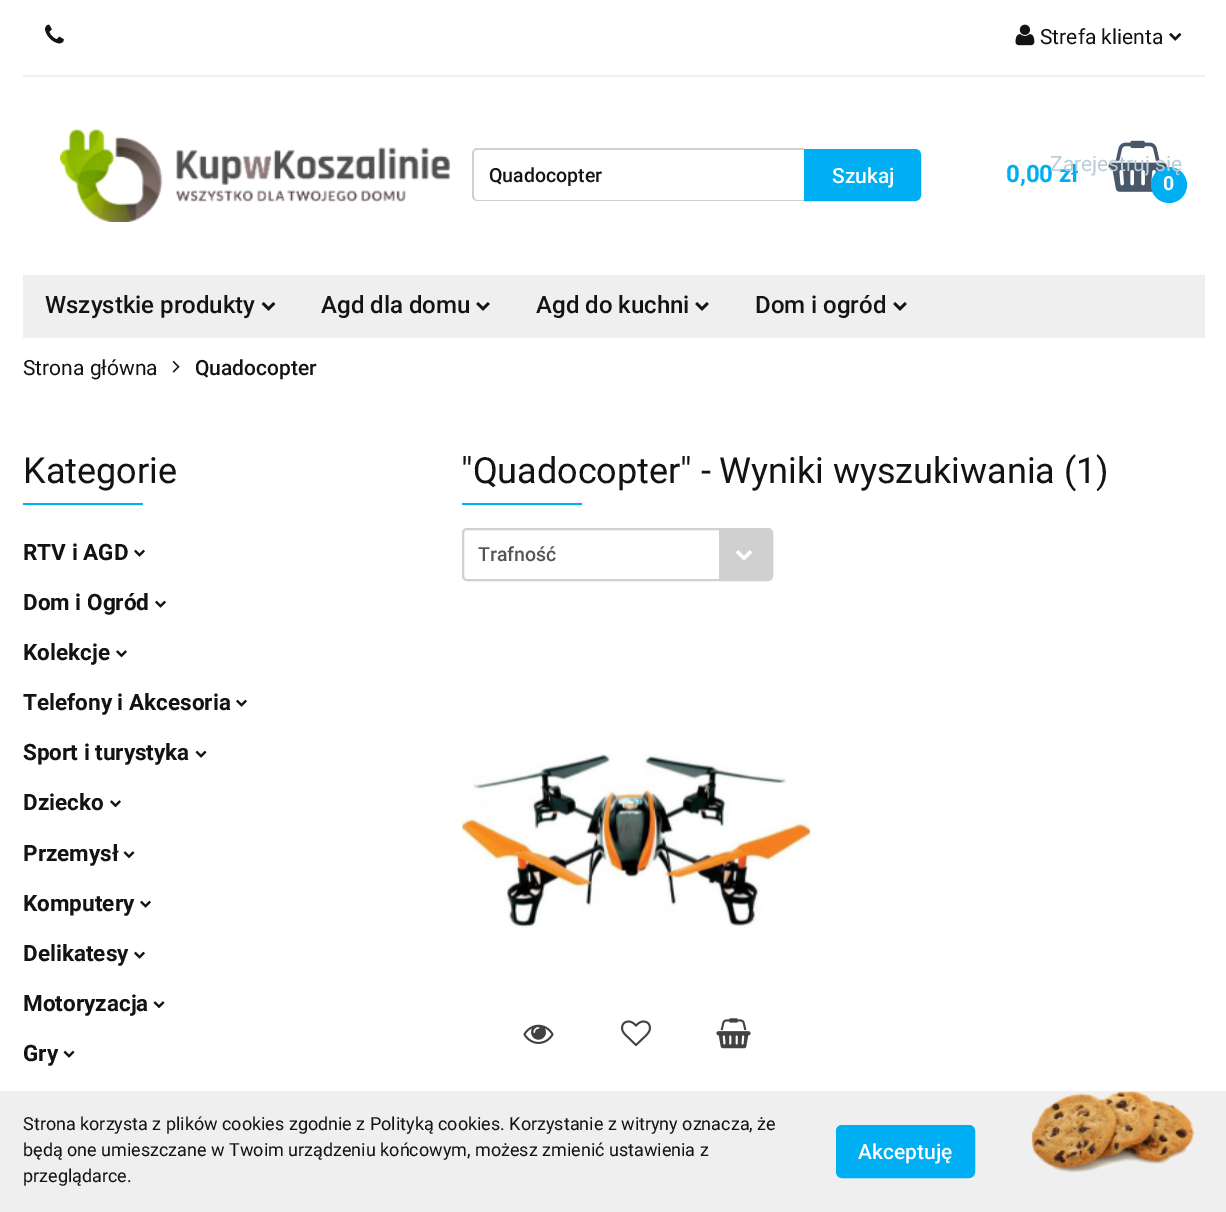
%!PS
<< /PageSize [1226 1212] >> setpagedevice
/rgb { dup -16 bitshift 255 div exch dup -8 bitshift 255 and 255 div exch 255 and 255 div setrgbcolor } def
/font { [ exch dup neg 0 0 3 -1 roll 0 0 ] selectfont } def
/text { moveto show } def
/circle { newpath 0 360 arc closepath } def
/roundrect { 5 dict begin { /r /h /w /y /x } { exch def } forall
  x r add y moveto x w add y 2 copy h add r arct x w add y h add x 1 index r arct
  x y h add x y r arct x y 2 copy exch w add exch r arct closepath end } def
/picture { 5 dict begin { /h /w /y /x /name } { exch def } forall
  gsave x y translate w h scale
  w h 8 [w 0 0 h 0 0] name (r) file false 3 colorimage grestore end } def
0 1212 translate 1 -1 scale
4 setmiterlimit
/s1 { /Roboto-Regular 21 font 16#131313 rgb } def
/s2 { /Roboto-Bold 24 font 16#00AEF3 rgb } def
/s3 { /Roboto-Regular 21 font 16#B9CED8 rgb } def
/s4 { /Roboto-Medium 19.5 font 16#131313 rgb } def
/s5 { /Roboto-Medium 21 font 16#FFFFFF rgb } def
/s6 { /Roboto-Bold 19.5 font 16#FFFFFF rgb } def
/s7 { /Roboto-Medium 24 font 16#131313 rgb } def
/s8 { /Roboto-Medium 21 font 16#131313 rgb } def
/s9 { /Roboto-Regular 36 font 16#131313 rgb } def
/s10 { /Roboto-Bold 22.5 font 16#131313 rgb } def
/s11 { /Roboto-Medium 19.5 font 16#555555 rgb } def
/s12 { /Roboto-Regular 18 font 16#131313 rgb } def
16#FFFFFF rgb
0 0 1226 1212 rectfill
16#EFEFEF rgb
23 75 1182 2 rectfill
(pic1.raw) 45 24 19 20 picture
(pic2.raw) 1015 24 20 22 picture
s1
(Strefa klienta) 1040 44 text
(pic3.raw) 1169 33 13 8 picture
s2
(0,00 zł) 1006 182 text
(pic5.raw) 1108 140 59 52 picture
1169 185 18 circle fill
s3
(Zarejestruj się) 1050 171 text
(pic4.raw) 60 129 390 93 picture
16#D0D0D0 rgb
477 148 moveto 804 148 lineto 804 201 lineto 477 201 lineto 475 201 472 199 472 196 curveto 472 153 lineto 472 151 475 148 477 148 curveto closepath 477 150 moveto 804 150 lineto 804 200 lineto 477 200 lineto 475 200 474 198 474 196 curveto 474 153 lineto 474 151 475 150 477 150 curveto closepath eofill
s4
(Quadocopter) 489 182 text
16#00AEF3 rgb
806.5 151.5 moveto 915 151.5 lineto 917 151.5 918.5 153 918.5 155 curveto 918.5 195 lineto 918.5 197 917 198.5 915 198.5 curveto 806.5 198.5 lineto closepath gsave fill grestore
5 setlinewidth
stroke
s5
(Szukaj) 832 183 text
s6
(0) 1163 190 text
16#EFEFEF rgb
23 275 1182 63 rectfill
s7
(Wszystkie produkty) 45 313 text
(pic6.raw) 261 302 15 9 picture
(Agd dla domu) 321 313 text
(pic7.raw) 476 302 14 9 picture
(Agd do kuchni) 536 313 text
(pic7.raw) 695 302 14 9 picture
(Dom i ogród) 755 313 text
(pic7.raw) 893 302 14 9 picture
s1
(Strona główna) 23 375 text
(pic8.raw) 172 361 8 12 picture
s8
(Quadocopter) 195 375 text
s9
(Kategorie) 23 483 text
16#00AEF3 rgb
23 503 120 2 rectfill
s10
(RTV i AGD) 23 560 text
(pic9.raw) 134 549 11 8 picture
(Dom i Ogród) 23 610 text
(pic9.raw) 155 600 11 8 picture
(Kolekcje) 23 660 text
(pic10.raw) 116 650 11 8 picture
(Telefony i Akcesoria) 23 710 text
(pic9.raw) 236 699 11 8 picture
(Sport i turystyka) 23 760 text
(pic11.raw) 195 750 12 8 picture
(Dziecko) 23 810 text
(pic10.raw) 110 800 11 8 picture
(Przemysł) 23 861 text
(pic12.raw) 123 851 12 8 picture
(Komputery) 23 911 text
(pic9.raw) 140 900 11 8 picture
(Delikatesy) 23 961 text
(pic9.raw) 134 951 11 8 picture
(Motoryzacja) 23 1011 text
(pic12.raw) 153 1001 12 8 picture
(Gry) 23 1061 text
(pic11.raw) 63 1050 12 8 picture
s9
("Quadocopter" - Wyniki wyszukiwania \(1\)) 461 483 text
16#00AEF3 rgb
462 503 120 2 rectfill
16#D0D0D0 rgb
2 setlinewidth
463 529 309 51 4 roundrect stroke
s11
(Trafność) 478 561 text
16#D0D0D0 rgb
719 530 moveto 768 530 lineto 769.5 530 771 531.5 771 533 curveto 771 576 lineto 771 577.5 769.5 579 768 579 curveto 719 579 lineto closepath fill
(pic13.raw) 736 550 16 11 picture
(pic14.raw) 462 754 348 174 picture
(pic15.raw) 523 1024 31 20 picture
(pic16.raw) 621 1020 30 27 picture
(pic17.raw) 716 1018 35 31 picture
16#EFEFEF rgb
0 1091 1226 121 rectfill
s12
(Strona korzysta z plików cookies zgodnie z Polityką cookies. Korzystanie z witryny oznacza, że) 23 1130 text
(będą one umieszczane w Twoim urządzeniu końcowym, możesz zmienić ustawienia z) 23 1156 text
(przeglądarce.) 23 1182 text
16#00AEF3 rgb
838.5 1127.5 134 48 3.5 roundrect gsave fill grestore
5 setlinewidth
stroke
s5
(Akceptuję) 858 1159 text
(pic18.raw) 1031 1090 164 83 picture
showpage
